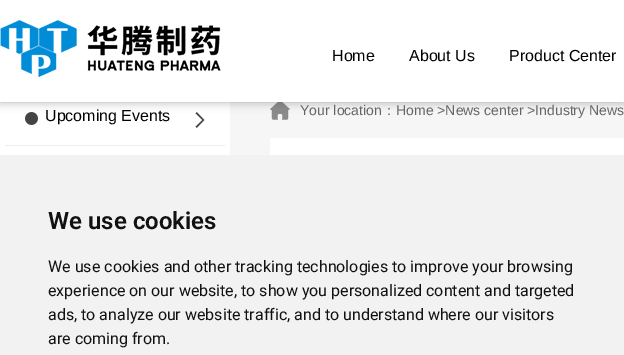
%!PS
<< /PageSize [624 355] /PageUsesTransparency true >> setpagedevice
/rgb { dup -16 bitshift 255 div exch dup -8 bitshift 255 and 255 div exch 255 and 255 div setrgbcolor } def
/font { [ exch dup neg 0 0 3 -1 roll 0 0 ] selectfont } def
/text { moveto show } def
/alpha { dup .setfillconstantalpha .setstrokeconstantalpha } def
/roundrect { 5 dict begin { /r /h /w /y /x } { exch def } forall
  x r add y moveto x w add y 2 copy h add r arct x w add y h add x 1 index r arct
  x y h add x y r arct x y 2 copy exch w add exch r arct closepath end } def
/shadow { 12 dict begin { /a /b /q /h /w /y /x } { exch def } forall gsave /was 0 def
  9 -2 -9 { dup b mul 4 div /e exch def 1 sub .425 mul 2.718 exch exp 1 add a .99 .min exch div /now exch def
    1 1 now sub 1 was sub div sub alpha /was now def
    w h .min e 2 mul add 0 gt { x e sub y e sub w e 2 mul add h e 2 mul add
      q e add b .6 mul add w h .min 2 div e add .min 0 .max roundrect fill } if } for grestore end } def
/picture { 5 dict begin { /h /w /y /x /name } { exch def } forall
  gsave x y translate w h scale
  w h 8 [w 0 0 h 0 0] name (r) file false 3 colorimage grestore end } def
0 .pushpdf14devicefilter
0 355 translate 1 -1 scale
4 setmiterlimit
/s1 { /LiberationSans-Regular 16 font 16#000000 rgb } def
/s2 { /LiberationSans-Regular 14 font 16#656565 rgb } def
/s3 { /WenQuanYiZenHei-Medium 14 font 16#656565 rgb } def
/s4 { /Roboto-SemiBold 24 font 16#111111 rgb } def
/s5 { /Roboto-Regular 16 font 16#111111 rgb } def
16#F6F6F6 rgb
0 0 624 355 rectfill
16#FFFFFF rgb
0 102 230 53 rectfill
(pic2.raw) 25 112 13 13 picture
(pic3.raw) 195 112 10 16 picture
(pic4.raw) 270 102 20 18 picture
16#2C2C2C rgb
0 0 624 102 0 5 0.4 shadow
16#FFFFFF rgb
0 0 624 102 rectfill
(pic1.raw) 0 20 221 57 picture
s1
(Home) 332 61 text
(About Us) 409 61 text
(Product Center) 509 61 text
16#EEEEEE rgb
5 145 220 1 rectfill
s1
(Upcoming Events) 45 121 text
s2
(Your location) 300 115 text
s3
(：) 382 115 text
s2
(Home >News center >Industry News) 396 115 text
16#FFFFFF rgb
270 138 354 17 rectfill
16#F2F2F2 rgb
0 155 624 200 rectfill
s4
(We use cookies) 48 229 text
s5
(We use cookies and other tracking technologies to improve your browsing) 48 272 text
(experience on our website, to show you personalized content and targeted) 48 296 text
(ads, to analyze our website traffic, and to understand where our visitors) 48 320 text
(are coming from.) 48 344 text
.poppdf14devicefilter showpage
